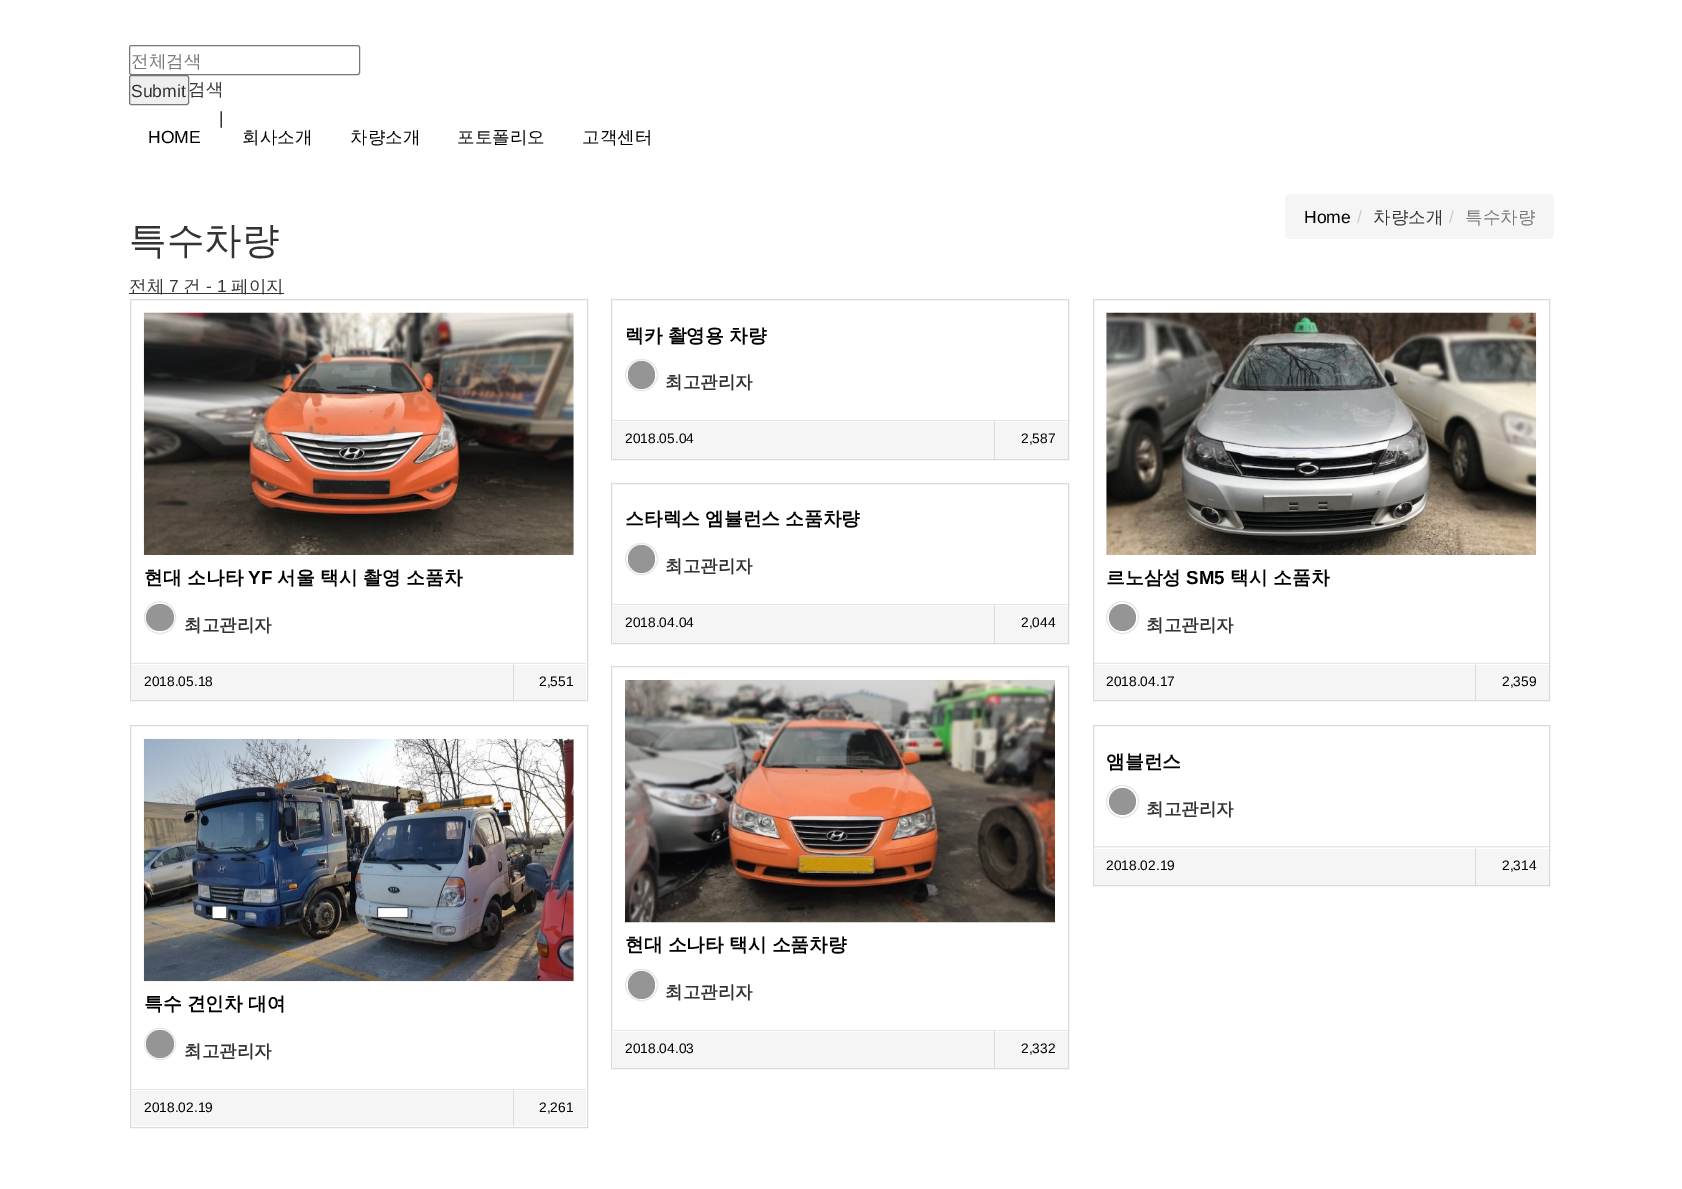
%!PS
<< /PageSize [1682 1189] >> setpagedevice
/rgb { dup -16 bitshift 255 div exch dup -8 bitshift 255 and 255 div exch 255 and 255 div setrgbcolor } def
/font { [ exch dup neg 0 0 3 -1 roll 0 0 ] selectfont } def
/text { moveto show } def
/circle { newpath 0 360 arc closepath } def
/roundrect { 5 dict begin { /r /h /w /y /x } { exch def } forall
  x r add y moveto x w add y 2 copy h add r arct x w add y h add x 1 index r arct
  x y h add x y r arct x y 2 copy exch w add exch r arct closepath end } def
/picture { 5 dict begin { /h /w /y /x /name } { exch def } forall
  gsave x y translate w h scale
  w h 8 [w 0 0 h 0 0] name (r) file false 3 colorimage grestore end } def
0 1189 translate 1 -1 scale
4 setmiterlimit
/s1 { /WenQuanYiZenHei-Medium 17.5 font 16#777777 rgb } def
/s2 { /LiberationSans-Regular 17.5 font 16#333333 rgb } def
/s3 { /WenQuanYiZenHei-Medium 17.5 font 16#333333 rgb } def
/s4 { /LiberationSans-Regular 17.5 font 16#000000 rgb } def
/s5 { /WenQuanYiZenHei-Medium 17.5 font 16#000000 rgb } def
/s6 { /LiberationSans-Regular 17.5 font 16#CCCCCC rgb } def
/s7 { /WenQuanYiZenHei-Medium 37.5 font 16#333333 rgb } def
/s8 { /WenQuanYiZenHei-Bold 17.5 font 16#333333 rgb } def
/s9 { /LiberationSans-Regular 13.75 font 16#000000 rgb } def
/s10 { /WenQuanYiZenHei-Bold 18.75 font 16#000000 rgb } def
/s11 { /LiberationSans-Bold 18.75 font 16#000000 rgb } def
16#FFFFFF rgb
0 0 1682 1189 rectfill
16#767676 rgb
129.5 45.5 230 29 2 roundrect stroke
s1
(전체검색) 131 67 text
16#EFEFEF rgb
129.5 75.5 59 29 2 roundrect gsave fill grestore
16#767676 rgb
stroke
s2
(Submit) 131 97 text
s3
(검색) 188 95 text
s2
(|) 219 124 text
s4
(HOME) 148 143 text
s5
(회사소개) 242 143 text
(차량소개) 350 143 text
(포토폴리오) 457 143 text
(고객센터) 582 143 text
16#F5F5F5 rgb
1285 194 269 45 5 roundrect fill
s4
(Home) 1304 223 text
s6
(/) 1357 223 text
s3
(차량소개) 1373 223 text
s6
(/) 1449 223 text
s1
(특수차량) 1465 223 text
s7
(특수차량) 129 253 text
129 293 155 1 rectfill
s3
(전체) 129 292 text
s2
(7) 169 292 text
s3
(건) 183 292 text
s2
(- 1) 206 292 text
s3
(페이지) 231 292 text
16#DADADA rgb
611.5 299.5 457 160 rectstroke
/WenQuanYiZenHei-Bold 18.75 font
16#000000 rgb
625 342 moveto -0.5 0 32 (렉카 촬영용 차량) widthshow
16#E5E5E5 rgb
625.5 359.5 32 31 15.5 roundrect stroke
16#959595 rgb
628 361 27 28 13.5 roundrect fill
s8
(최고관리자) 665 388 text
16#F5F5F5 rgb
613 422 455 37 rectfill
16#E5E5E5 rgb
613 420 455 1 rectfill
s9
(2018.05.04) 625 443 text
16#DBDBDB rgb
994 421 1 38 rectfill
s9
(2,587) 1021 443 text
16#DADADA rgb
130.5 299.5 457 401 rectstroke
(pic1.raw) 143 312 431 243 picture
s10
(현대 소나타) 144 584 text
s11
(YF) 248 584 text
s10
(서울 택시 촬영 소품차) 277 584 text
16#E5E5E5 rgb
144.5 601.5 31 32 15.5 roundrect stroke
16#959595 rgb
146 604 28 27 13.5 roundrect fill
s8
(최고관리자) 184 631 text
16#F5F5F5 rgb
131 665 455 35 rectfill
16#E5E5E5 rgb
131 663 455 1 rectfill
s9
(2018.05.18) 144 686 text
16#DBDBDB rgb
513 664 1 36 rectfill
s9
(2,551) 539 686 text
16#DADADA rgb
611.5 483.5 457 160 rectstroke
/WenQuanYiZenHei-Bold 18.75 font
16#000000 rgb
625 525 moveto -0.5 0 32 (스타렉스 엠뷸런스 소품차량) widthshow
16#E5E5E5 rgb
625.5 543.5 32 31 15.5 roundrect stroke
16#959595 rgb
628 545 27 28 13.5 roundrect fill
s8
(최고관리자) 665 572 text
16#F5F5F5 rgb
613 606 455 37 rectfill
16#E5E5E5 rgb
613 604 455 1 rectfill
s9
(2018.04.04) 625 627 text
16#DBDBDB rgb
994 605 1 38 rectfill
s9
(2,044) 1021 627 text
16#DADADA rgb
1093.5 299.5 456 401 rectstroke
(pic2.raw) 1106 312 431 243 picture
s10
(르노삼성) 1106 584 text
s11
(SM5) 1186 584 text
s10
(택시 소품차) 1230 584 text
16#E5E5E5 rgb
1122.5 617.5 16 circle stroke
16#959595 rgb
1122.5 617.5 13.5 circle fill
s8
(최고관리자) 1146 631 text
16#F5F5F5 rgb
1094 665 455 35 rectfill
16#E5E5E5 rgb
1094 663 455 1 rectfill
s9
(2018.04.17) 1106 686 text
16#DBDBDB rgb
1475 664 1 36 rectfill
s9
(2,359) 1502 686 text
16#DADADA rgb
1093.5 725.5 456 160 rectstroke
s10
(앰블런스) 1106 768 text
16#E5E5E5 rgb
1122.5 801.5 16 circle stroke
16#959595 rgb
1122.5 801.5 13.5 circle fill
s8
(최고관리자) 1146 815 text
16#F5F5F5 rgb
1094 847 455 38 rectfill
16#FFFFFF rgb
1094 848 455 1 rectfill
16#E5E5E5 rgb
1094 846 455 1 rectfill
s9
(2018.02.19) 1106 870 text
16#DBDBDB rgb
1475 848 1 37 rectfill
s9
(2,314) 1502 870 text
16#DADADA rgb
130.5 725.5 457 402 rectstroke
(pic3.raw) 143 738 431 244 picture
/WenQuanYiZenHei-Bold 18.75 font
16#000000 rgb
144 1010 moveto -0.5 0 32 (특수 견인차 대여) widthshow
16#E5E5E5 rgb
160 1044 15.5 circle stroke
16#959595 rgb
160 1044 14 circle fill
s8
(최고관리자) 184 1057 text
16#F5F5F5 rgb
131 1091 455 35 rectfill
16#E5E5E5 rgb
131 1089 455 1 rectfill
s9
(2018.02.19) 144 1112 text
16#DBDBDB rgb
513 1090 1 36 rectfill
s9
(2,261) 539 1112 text
16#DADADA rgb
611.5 666.5 457 402 rectstroke
(pic4.raw) 625 680 430 243 picture
/WenQuanYiZenHei-Bold 18.75 font
16#000000 rgb
625 951 moveto -0.5 0 32 (현대 소나타 택시 소품차량) widthshow
16#E5E5E5 rgb
625.5 969.5 32 31 15.5 roundrect stroke
16#959595 rgb
628 971 27 28 13.5 roundrect fill
s8
(최고관리자) 665 998 text
16#F5F5F5 rgb
613 1032 455 36 rectfill
16#E5E5E5 rgb
613 1030 455 1 rectfill
s9
(2018.04.03) 625 1053 text
16#DBDBDB rgb
994 1031 1 37 rectfill
s9
(2,332) 1021 1053 text
showpage
